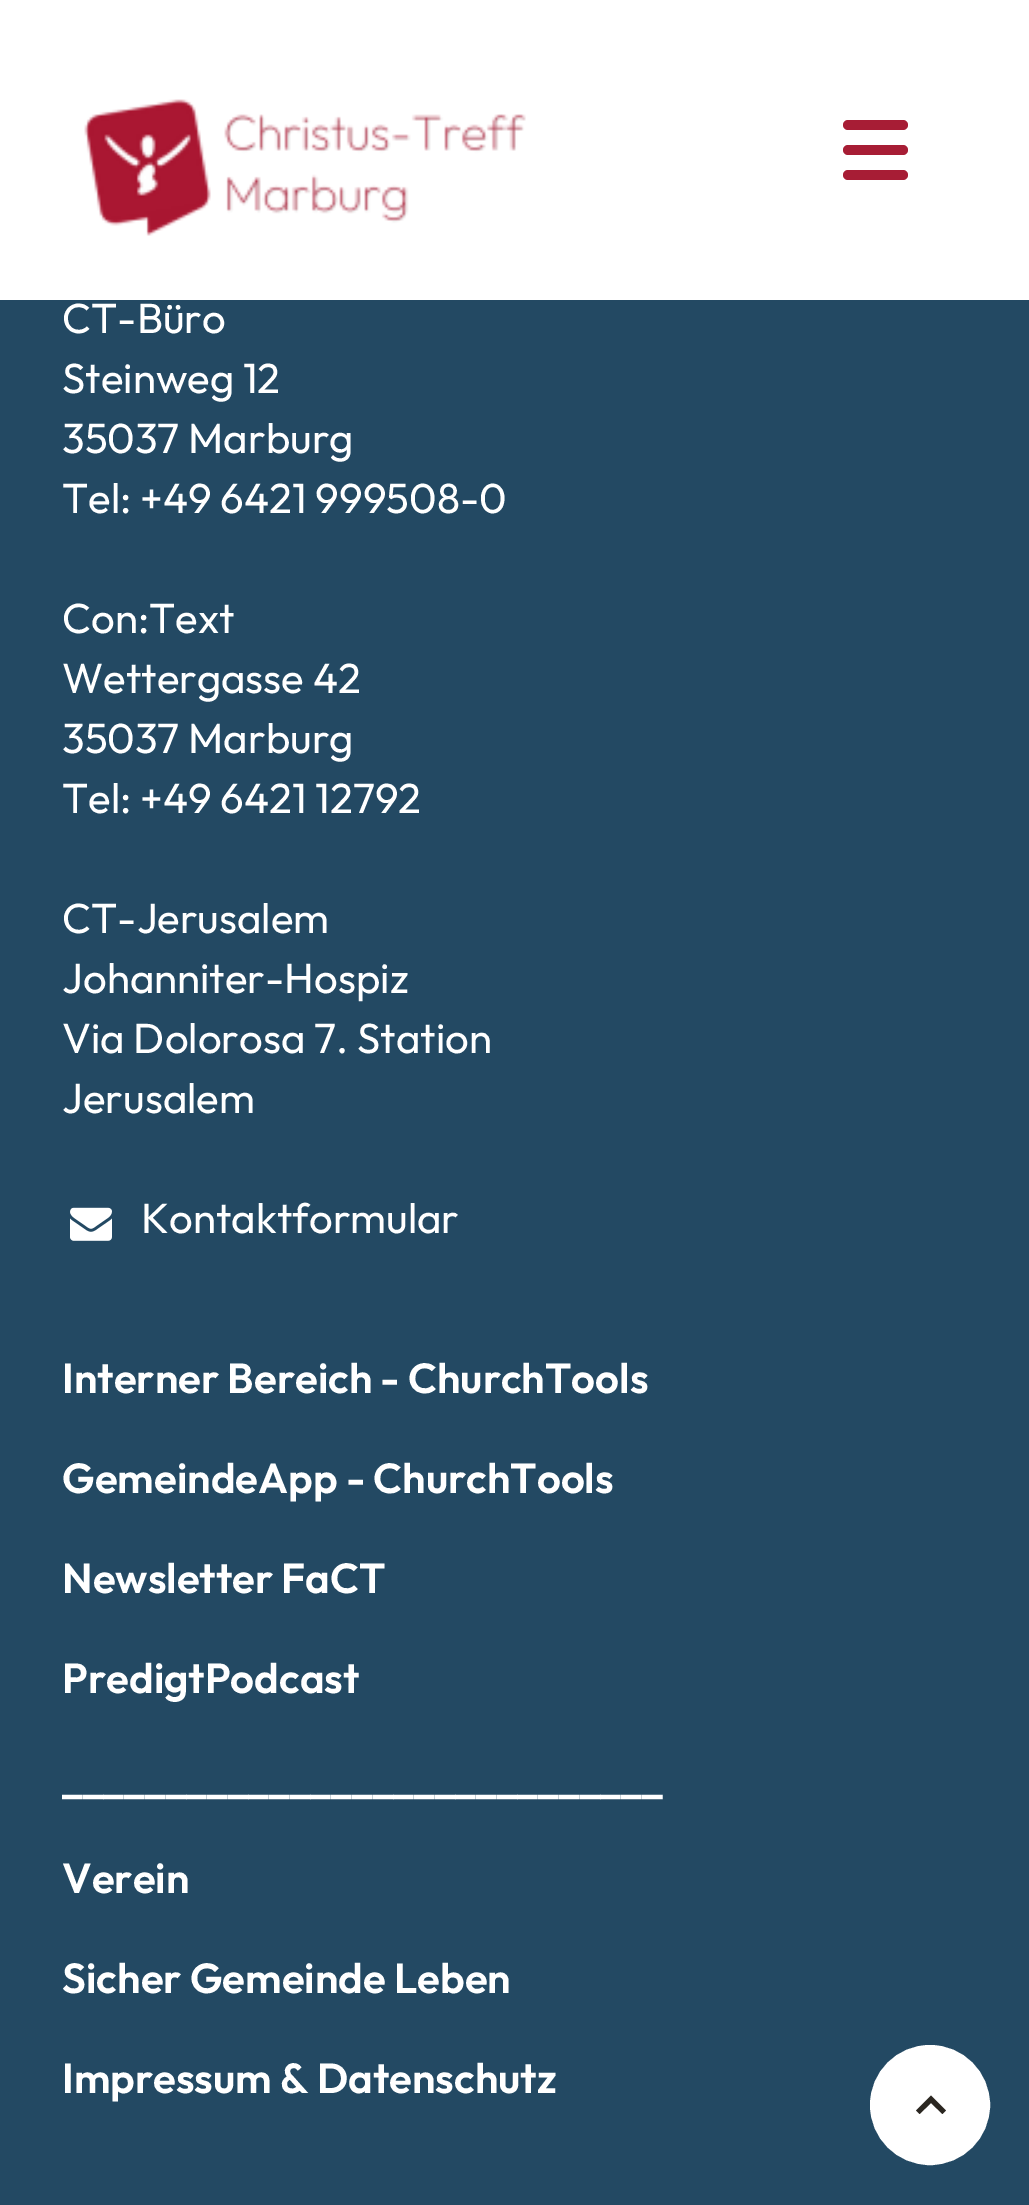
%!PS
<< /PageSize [1029 2205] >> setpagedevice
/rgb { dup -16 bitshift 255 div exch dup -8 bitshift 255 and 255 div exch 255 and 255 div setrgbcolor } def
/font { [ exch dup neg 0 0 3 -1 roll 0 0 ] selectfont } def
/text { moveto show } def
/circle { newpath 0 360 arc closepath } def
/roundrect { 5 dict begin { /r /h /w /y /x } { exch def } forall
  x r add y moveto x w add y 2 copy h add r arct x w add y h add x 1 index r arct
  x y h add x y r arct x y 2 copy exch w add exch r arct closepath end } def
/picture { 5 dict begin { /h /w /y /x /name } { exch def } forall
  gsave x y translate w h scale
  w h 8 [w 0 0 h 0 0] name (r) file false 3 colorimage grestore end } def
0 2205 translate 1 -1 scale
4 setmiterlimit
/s1 { /Outfit-Regular 42 font 16#FFFFFF rgb } def
/s2 { /Outfit-SemiBold 42 font 16#FFFFFF rgb } def
16#234963 rgb
0 0 1029 2205 rectfill
16#FFFFFF rgb
0 0 1029 300 rectfill
(pic1.raw) 84 99 442 137 picture
16#A71D35 rgb
843 145 65 10 5 roundrect fill
843 120 65 10 5 roundrect fill
843 170 65 10 5 roundrect fill
s1
(CT-Büro) 62 333 text
(Steinweg 12) 62 393 text
(35037 Marburg) 62 453 text
(Tel: +49 6421 999508-0) 62 513 text
(Con:Text) 62 633 text
(Wettergasse 42) 62 693 text
(35037 Marburg) 62 753 text
(Tel: +49 6421 12792) 62 813 text
(CT-Jerusalem) 62 933 text
(Johanniter-Hospiz) 62 993 text
(Via Dolorosa 7. Station) 62 1053 text
(Jerusalem) 62 1113 text
(pic2.raw) 70 1207 42 34 picture
(Kontaktformular) 141 1233 text
s2
(Interner Bereich - ChurchTools) 62 1393 text
(GemeindeApp - ChurchTools) 62 1493 text
(Newsletter FaCT) 62 1593 text
(PredigtPodcast) 62 1693 text
(_____________________________) 62 1793 text
(Verein) 62 1893 text
(Sicher Gemeinde Leben) 62 1993 text
(Impressum & Datenschutz) 62 2093 text
930 2105 58.5 circle gsave fill grestore
3 setlinewidth
stroke
16#2B2721 rgb
946 2110.5 moveto 942.5 2114 lineto 931 2103 lineto 919.5 2114 lineto 916 2110.5 lineto 931 2095.5 lineto closepath fill
showpage
